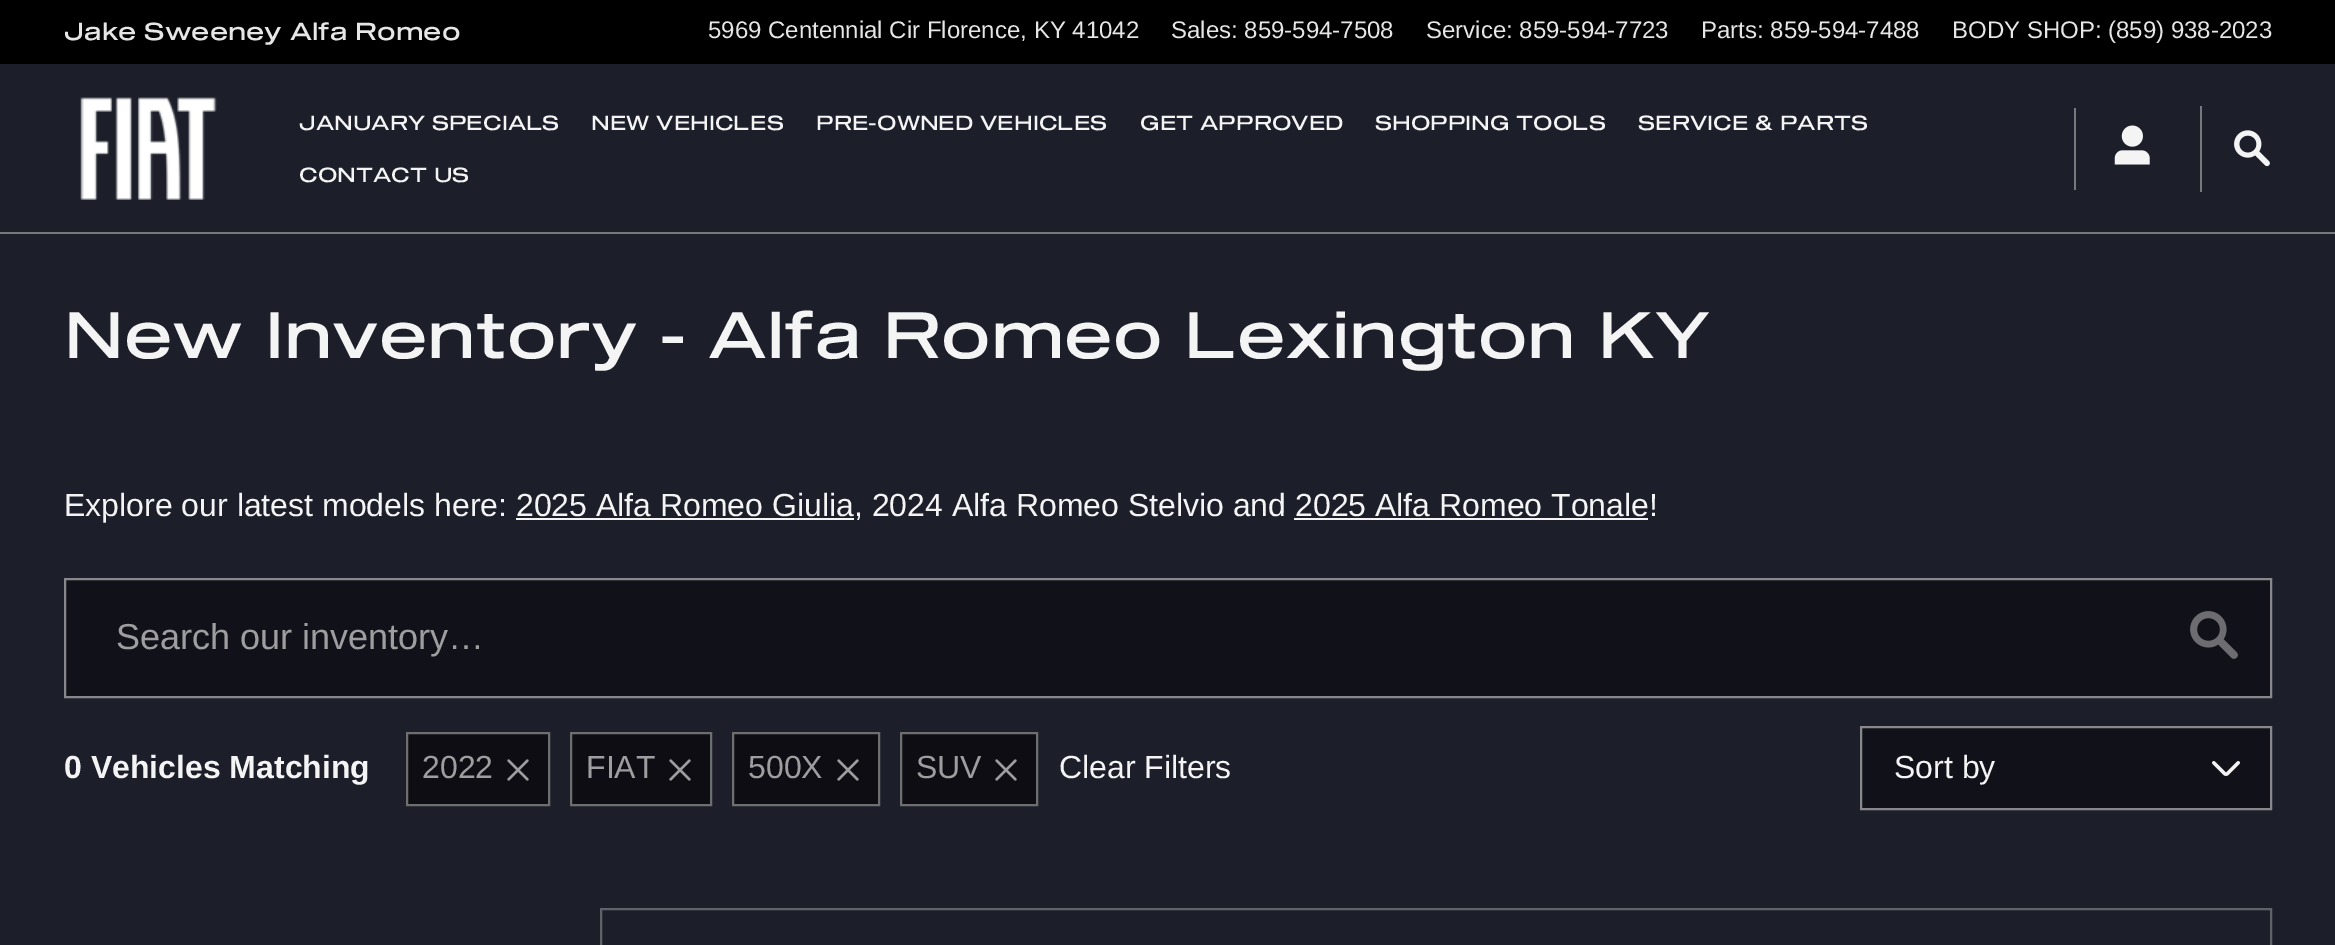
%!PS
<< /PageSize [2335 945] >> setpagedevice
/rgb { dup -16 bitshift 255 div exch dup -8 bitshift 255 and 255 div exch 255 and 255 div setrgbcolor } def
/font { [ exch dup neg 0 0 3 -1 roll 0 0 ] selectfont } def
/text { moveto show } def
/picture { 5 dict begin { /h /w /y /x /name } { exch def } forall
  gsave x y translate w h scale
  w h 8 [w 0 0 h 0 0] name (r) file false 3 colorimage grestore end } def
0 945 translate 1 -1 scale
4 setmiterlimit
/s1 { /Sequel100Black-Black 24 font 16#E6E6E6 rgb } def
/s2 { /LiberationSans-Regular 24 font 16#E6E6E6 rgb } def
/s3 { /Sequel100Black-Black 20 font 16#F4F4F4 rgb } def
/s4 { /Sequel100Black-Black 64 font 16#F4F4F4 rgb } def
/s5 { /LiberationSans-Regular 32 font 16#F4F4F4 rgb } def
/s6 { /LiberationSans-Regular 36 font 16#9E9EA1 rgb } def
/s7 { /LiberationSans-Bold 32 font 16#F4F4F4 rgb } def
/s8 { /LiberationSans-Regular 32 font 16#9E9EA1 rgb } def
16#1C1F2A rgb
0 0 2335 945 rectfill
16#77797F rgb
0 232 2335 2 rectfill
16#000000 rgb
0 0 2335 64 rectfill
s1
(Jake Sweeney Alfa Romeo) 64 40 text
s2
(5969 Centennial Cir Florence, KY 41042) 708 38 text
(Sales: 859-594-7508) 1171 38 text
(Service: 859-594-7723) 1426 38 text
(Parts: 859-594-7488) 1701 38 text
(BODY SHOP: \(859\) 938-2023) 1952 38 text
(pic1.raw) 80 97 137 103 picture
s3
(JANUARY SPECIALS) 299 130 text
(NEW VEHICLES) 591 130 text
(PRE-OWNED VEHICLES) 816 130 text
(GET APPROVED) 1140 130 text
(SHOPPING TOOLS) 1375 130 text
(SERVICE & PARTS) 1638 130 text
(CONTACT US) 299 182 text
16#77797F rgb
2074 108 2 82 rectfill
(pic2.raw) 2114 125 36 40 picture
2200 106 2 86 rectfill
(pic3.raw) 2234 130 36 37 picture
s4
(New Inventory - Alfa Romeo Lexington KY) 64 358 text
s5
(Explore our latest models here: 2025 Alfa Romeo Giulia, 2024 Alfa Romeo Stelvio and 2025 Alfa Romeo Tonale!) 64 516 text
516 518 338 2 rectfill
1294 518 354 2 rectfill
16#111119 rgb
65 579 moveto 2271 579 lineto 2271 697 lineto 65 697 lineto closepath gsave fill grestore
16#88888C rgb
2 setlinewidth
stroke
s6
(Search our inventory…) 116 649 text
(pic4.raw) 2190 611 48 48 picture
s7
(0 Vehicles Matching) 64 778 text
16#0D0D13 rgb
407 733 moveto 549 733 lineto 549 805 lineto 407 805 lineto closepath gsave fill grestore
16#6E6E71 rgb
stroke
s8
(2022) 422 778 text
(pic5.raw) 507 759 22 22 picture
16#0D0D13 rgb
571 733 moveto 711 733 lineto 711 805 lineto 571 805 lineto closepath gsave fill grestore
16#6E6E71 rgb
stroke
s8
(FIAT) 586 778 text
(pic5.raw) 669 759 22 22 picture
16#0D0D13 rgb
733 733 moveto 879 733 lineto 879 805 lineto 733 805 lineto closepath gsave fill grestore
16#6E6E71 rgb
stroke
s8
(500X) 748 778 text
(pic5.raw) 837 759 22 22 picture
16#0D0D13 rgb
901 733 moveto 1037 733 lineto 1037 805 lineto 901 805 lineto closepath gsave fill grestore
16#6E6E71 rgb
stroke
s8
(SUV) 916 778 text
(pic5.raw) 995 759 22 22 picture
s5
(Clear Filters) 1059 778 text
16#111119 rgb
1862 728 408 80 rectfill
(pic6.raw) 2212 761 28 15 picture
16#88888C rgb
1861 727 410 82 rectstroke
s5
(Sort by) 1894 778 text
16#60626A rgb
601 909 1670 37 rectstroke
showpage
